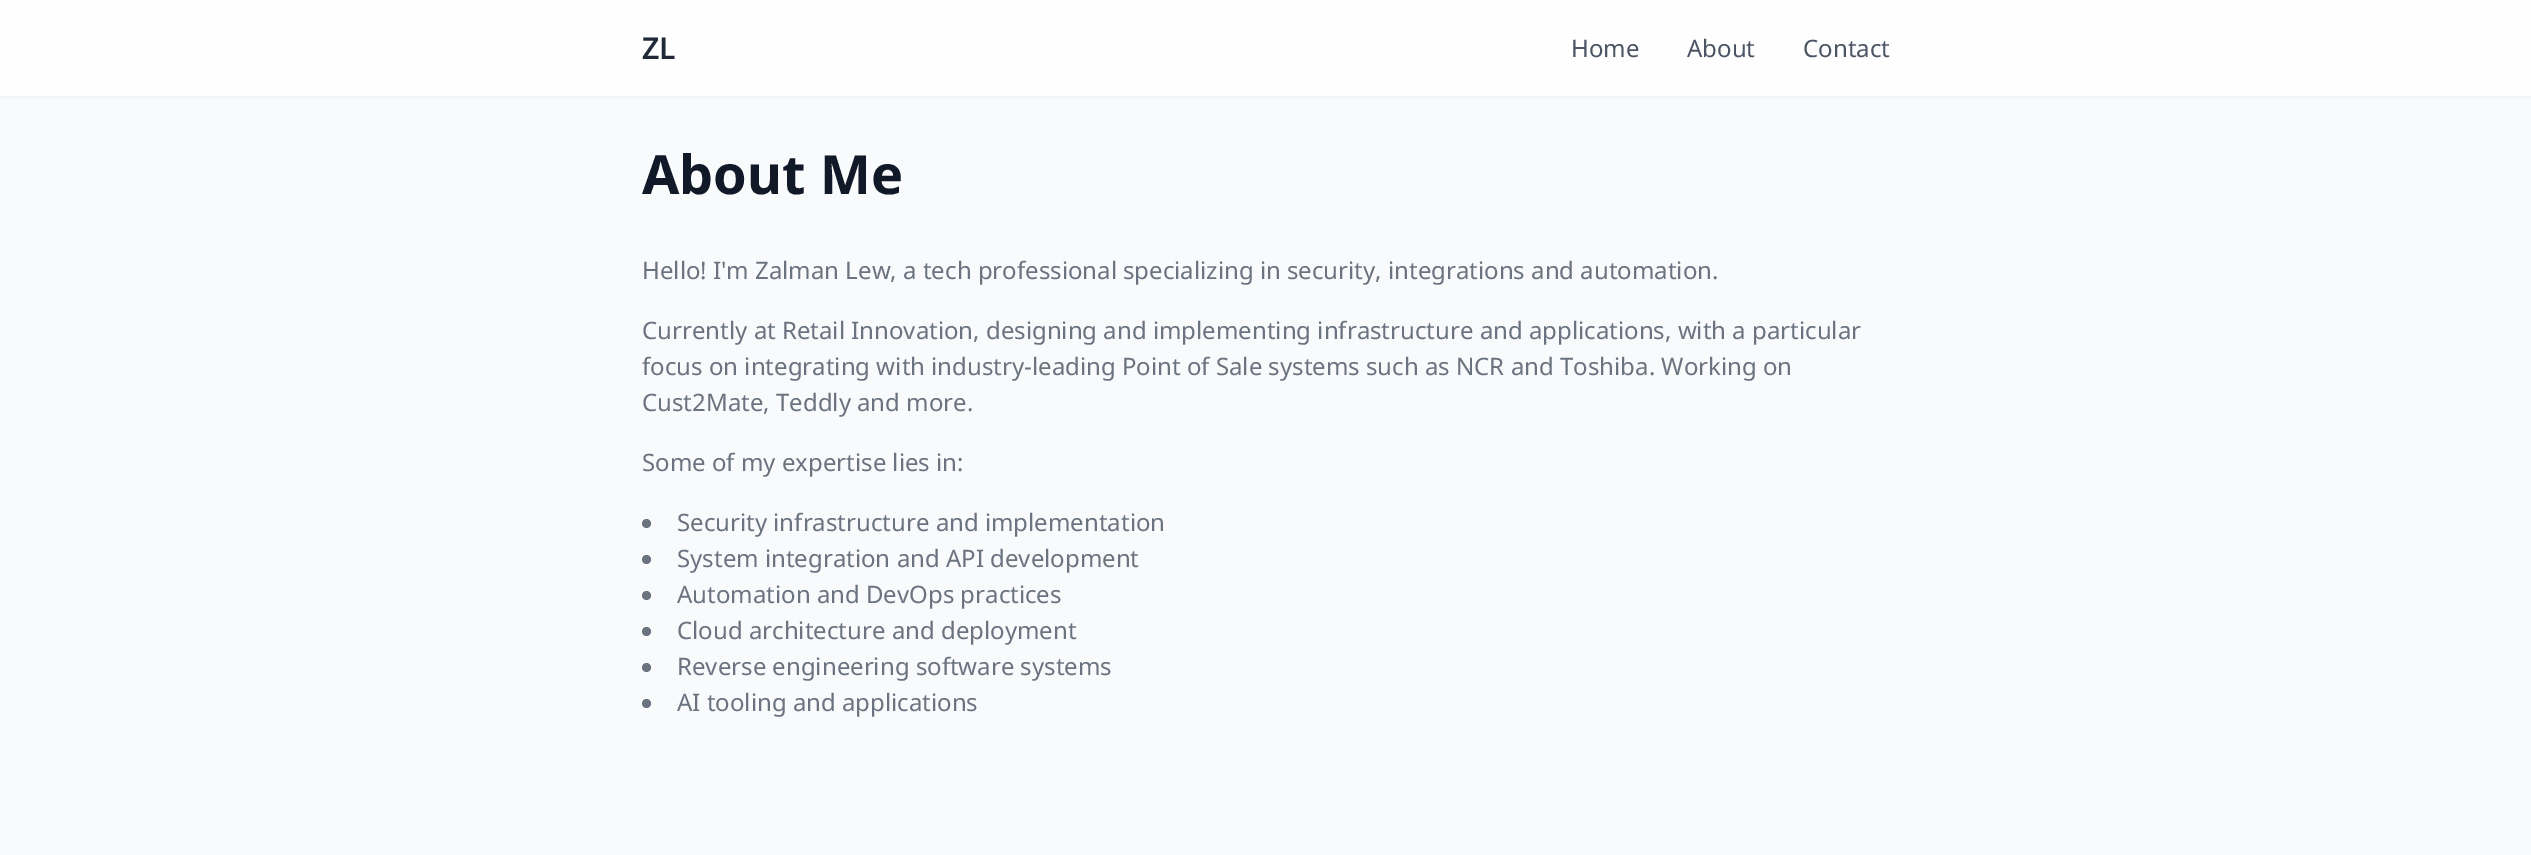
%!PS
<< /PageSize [2531 855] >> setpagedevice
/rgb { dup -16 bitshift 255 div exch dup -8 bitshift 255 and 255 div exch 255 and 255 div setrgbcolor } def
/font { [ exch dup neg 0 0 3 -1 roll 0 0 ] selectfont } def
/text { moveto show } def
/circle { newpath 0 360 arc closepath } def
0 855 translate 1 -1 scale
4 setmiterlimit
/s1 { /NotoSans-SemiBold 30 font 16#1F2937 rgb } def
/s2 { /NotoSans-Regular 24 font 16#4B5563 rgb } def
/s3 { /NotoSans-Bold 54 font 16#111827 rgb } def
/s4 { /NotoSans-Regular 24 font 16#6B7280 rgb } def
16#F9FAFB rgb
0 0 2531 855 rectfill
16#FEFEFE rgb
0 0 2531 96 rectfill
16#F3F4F6 rgb
0 96 2531 2 rectfill
s1
(ZL) 642 59 text
s2
(Home) 1571 57 text
(About) 1687 57 text
(Contact) 1803 57 text
s3
(About Me) 642 194 text
s4
(Hello! I'm Zalman Lew, a tech professional specializing in security, integrations and automation.) 642 279 text
(Currently at Retail Innovation, designing and implementing infrastructure and applications, with a particular) 642 339 text
(focus on integrating with industry-leading Point of Sale systems such as NCR and Toshiba. Working on) 642 375 text
(Cust2Mate, Teddly and more.) 642 411 text
(Some of my expertise lies in:) 642 471 text
646.5 523.5 4.5 circle fill
(Security infrastructure and implementation) 677 531 text
646.5 559.5 4.5 circle fill
(System integration and API development) 677 567 text
646.5 595.5 4.5 circle fill
(Automation and DevOps practices) 677 603 text
646.5 631.5 4.5 circle fill
(Cloud architecture and deployment) 677 639 text
646.5 667.5 4.5 circle fill
(Reverse engineering software systems) 677 675 text
646.5 703.5 4.5 circle fill
(AI tooling and applications) 677 711 text
showpage
